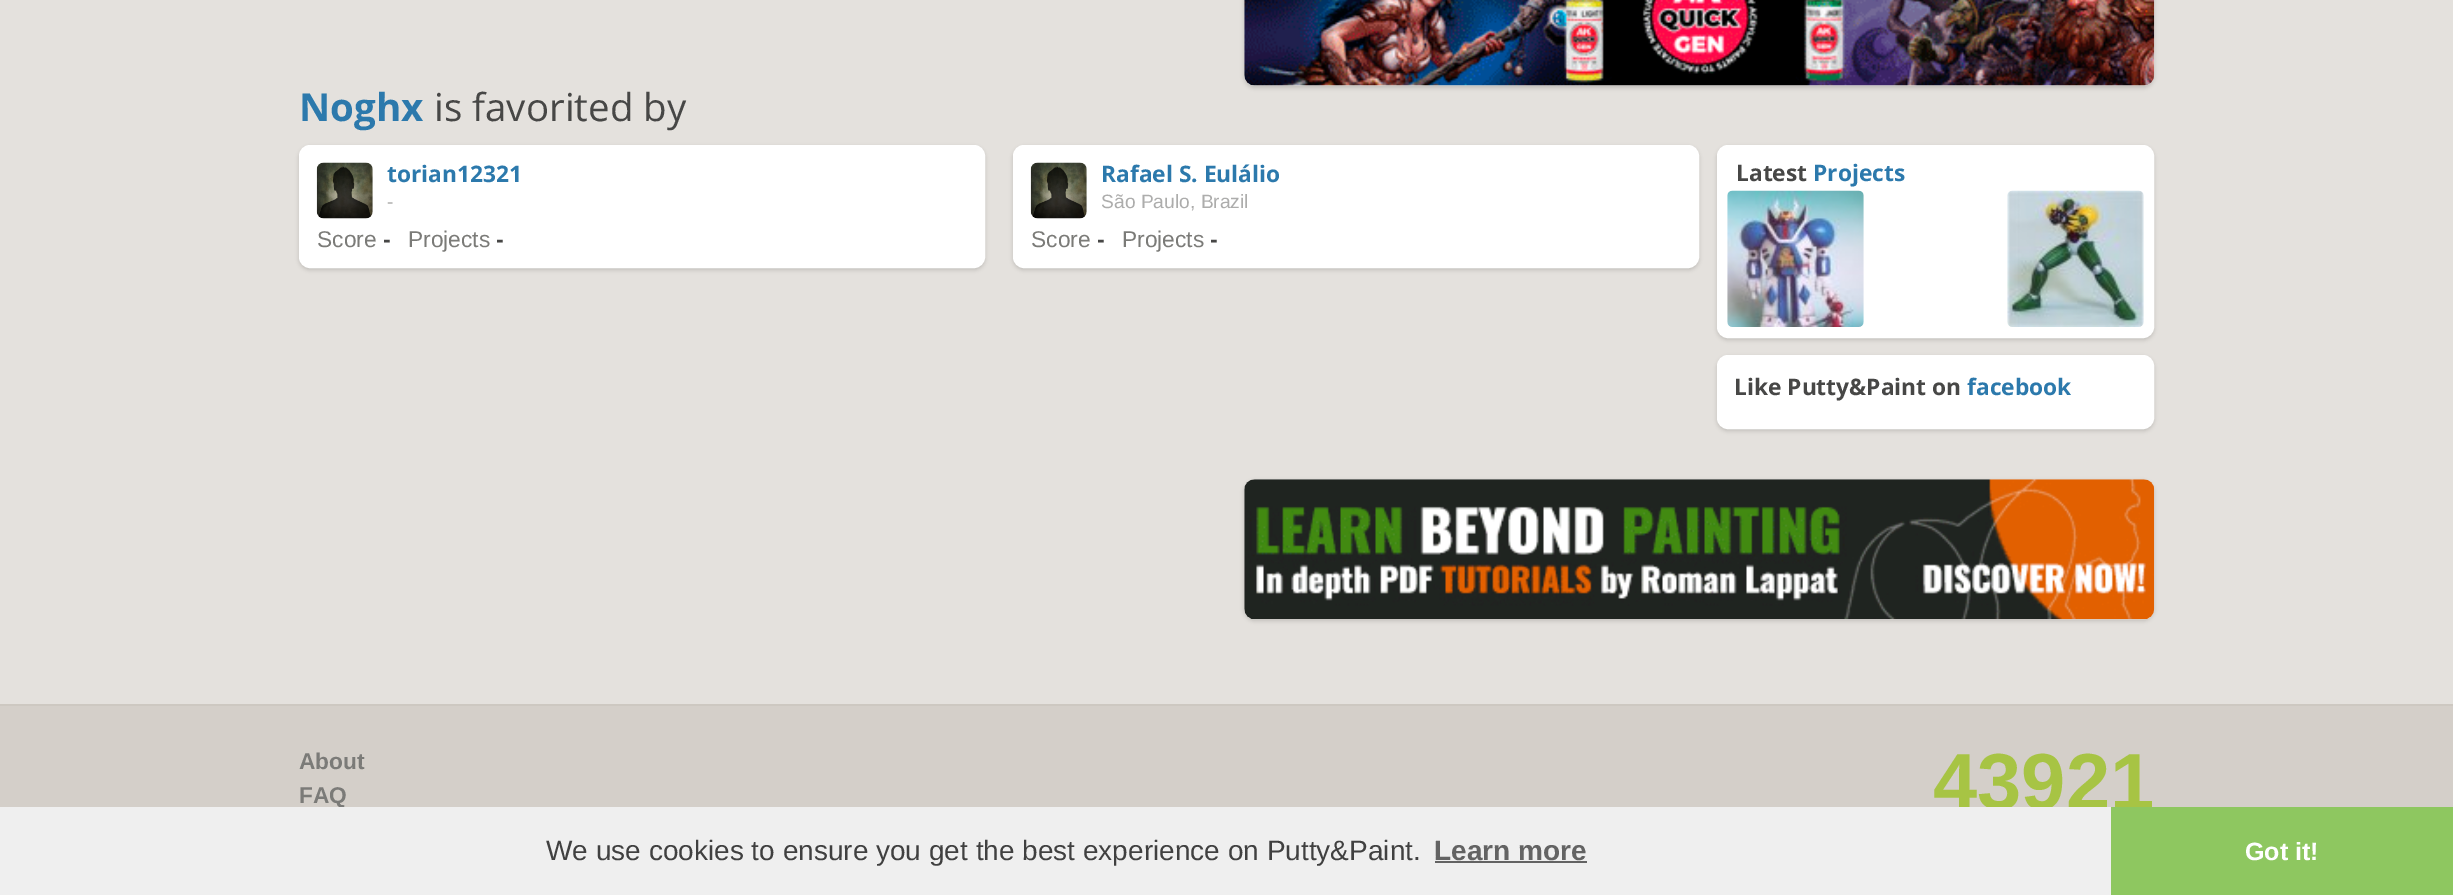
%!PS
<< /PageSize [2453 895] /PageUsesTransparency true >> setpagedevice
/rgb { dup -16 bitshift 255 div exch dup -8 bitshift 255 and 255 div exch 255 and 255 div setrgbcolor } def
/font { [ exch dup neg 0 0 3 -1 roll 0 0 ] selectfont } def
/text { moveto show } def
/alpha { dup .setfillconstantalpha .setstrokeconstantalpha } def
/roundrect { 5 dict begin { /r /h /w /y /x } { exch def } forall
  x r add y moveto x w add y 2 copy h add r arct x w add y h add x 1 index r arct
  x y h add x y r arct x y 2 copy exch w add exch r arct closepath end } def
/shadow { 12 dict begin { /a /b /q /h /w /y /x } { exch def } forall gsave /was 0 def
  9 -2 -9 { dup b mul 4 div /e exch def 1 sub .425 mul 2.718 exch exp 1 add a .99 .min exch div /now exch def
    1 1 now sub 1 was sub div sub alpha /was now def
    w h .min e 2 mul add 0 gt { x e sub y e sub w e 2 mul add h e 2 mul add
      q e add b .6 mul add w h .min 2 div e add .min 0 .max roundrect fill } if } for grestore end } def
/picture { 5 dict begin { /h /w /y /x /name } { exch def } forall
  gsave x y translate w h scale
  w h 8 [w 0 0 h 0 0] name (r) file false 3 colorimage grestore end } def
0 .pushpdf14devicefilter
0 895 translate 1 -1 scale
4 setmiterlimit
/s1 { /OpenSans-Bold 38.5 font 16#2C79AC rgb } def
/s2 { /OpenSans-Regular 38.5 font 16#474746 rgb } def
/s3 { /OpenSans-Bold 22.75 font 16#2C79AC rgb } def
/s4 { /LiberationSans-Regular 19.25 font 16#ADADAC rgb } def
/s5 { /LiberationSans-Regular 22.75 font 16#7B7B78 rgb } def
/s6 { /LiberationSans-Bold 22.75 font 16#474746 rgb } def
/s7 { /OpenSans-Bold 22.75 font 16#474746 rgb } def
/s8 { /LiberationSans-Bold 22.75 font 16#7B7B78 rgb } def
/s9 { /LiberationSans-Bold 79.5 font 16#A7C444 rgb } def
/s10 { /LiberationSans-Regular 28 font 16#404040 rgb } def
/s11 { /LiberationSans-Bold 28 font 16#636363 rgb } def
/s12 { /LiberationSans-Bold 25 font 16#FFFFFF rgb } def
16#E4E1DD rgb
0 0 2453 895 rectfill
16#000000 rgb
1244 -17 910 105 11 2 0.15 shadow
(pic1.raw) 1244 0 911 86 picture
s1
(Noghx) 299 121 text
s2
(is favorited by) 434 121 text
16#000000 rgb
299 147 686 123 11 2 0.15 shadow
16#FFFFFF rgb
300 146 684 121 10 roundrect gsave fill grestore
2 setlinewidth
stroke
(pic2.raw) 316 162 57 57 picture
s3
(torian12321) 387 182 text
s4
(-) 387 208 text
s5
(Score) 317 247 text
s6
(-) 383 247 text
s5
(Projects) 408 247 text
s6
(-) 496 247 text
16#000000 rgb
1013 147 686 123 11 2 0.15 shadow
16#FFFFFF rgb
1014 146 684 121 10 roundrect gsave fill grestore
stroke
(pic3.raw) 1030 162 57 57 picture
s3
(Rafael S. Eulálio) 1101 182 text
s4
(São Paulo, Brazil) 1101 208 text
s5
(Score) 1031 247 text
s6
(-) 1097 247 text
s5
(Projects) 1122 247 text
s6
(-) 1210 247 text
16#000000 rgb
1717 147 437 193 11 2 0.15 shadow
16#FFFFFF rgb
1718 146 435 191 10 roundrect gsave fill grestore
stroke
s7
(Latest) 1736 181 text
s3
(Projects) 1813 181 text
(pic4.raw) 1727 190 137 137 picture
(pic5.raw) 2007 190 137 137 picture
16#000000 rgb
1717 357 437 74 11 2 0.15 shadow
16#FFFFFF rgb
1718 356 435 72 10 roundrect gsave fill grestore
stroke
s7
(Like Putty&Paint on) 1734 395 text
s3
(facebook) 1967 395 text
16#000000 rgb
1244 481 910 140 11 2 0.15 shadow
(pic6.raw) 1244 479 911 141 picture
16#D4CFC9 rgb
0 706 2453 101 rectfill
16#CDC8C1 rgb
0 704 2453 2 rectfill
s8
(About) 299 769 text
(FAQ) 299 803 text
s9
(43921) 1933 809 text
16#EFEFEF rgb
0 807 2111 88 rectfill
s10
(We use cookies to ensure you get the best experience on Putty&Paint.) 546 860 text
s11
(Learn more) 1434 860 text
1435 861 152 2 rectfill
16#8EC760 rgb
2111 807 342 88 rectfill
s12
(Got it!) 2245 860 text
.poppdf14devicefilter showpage
